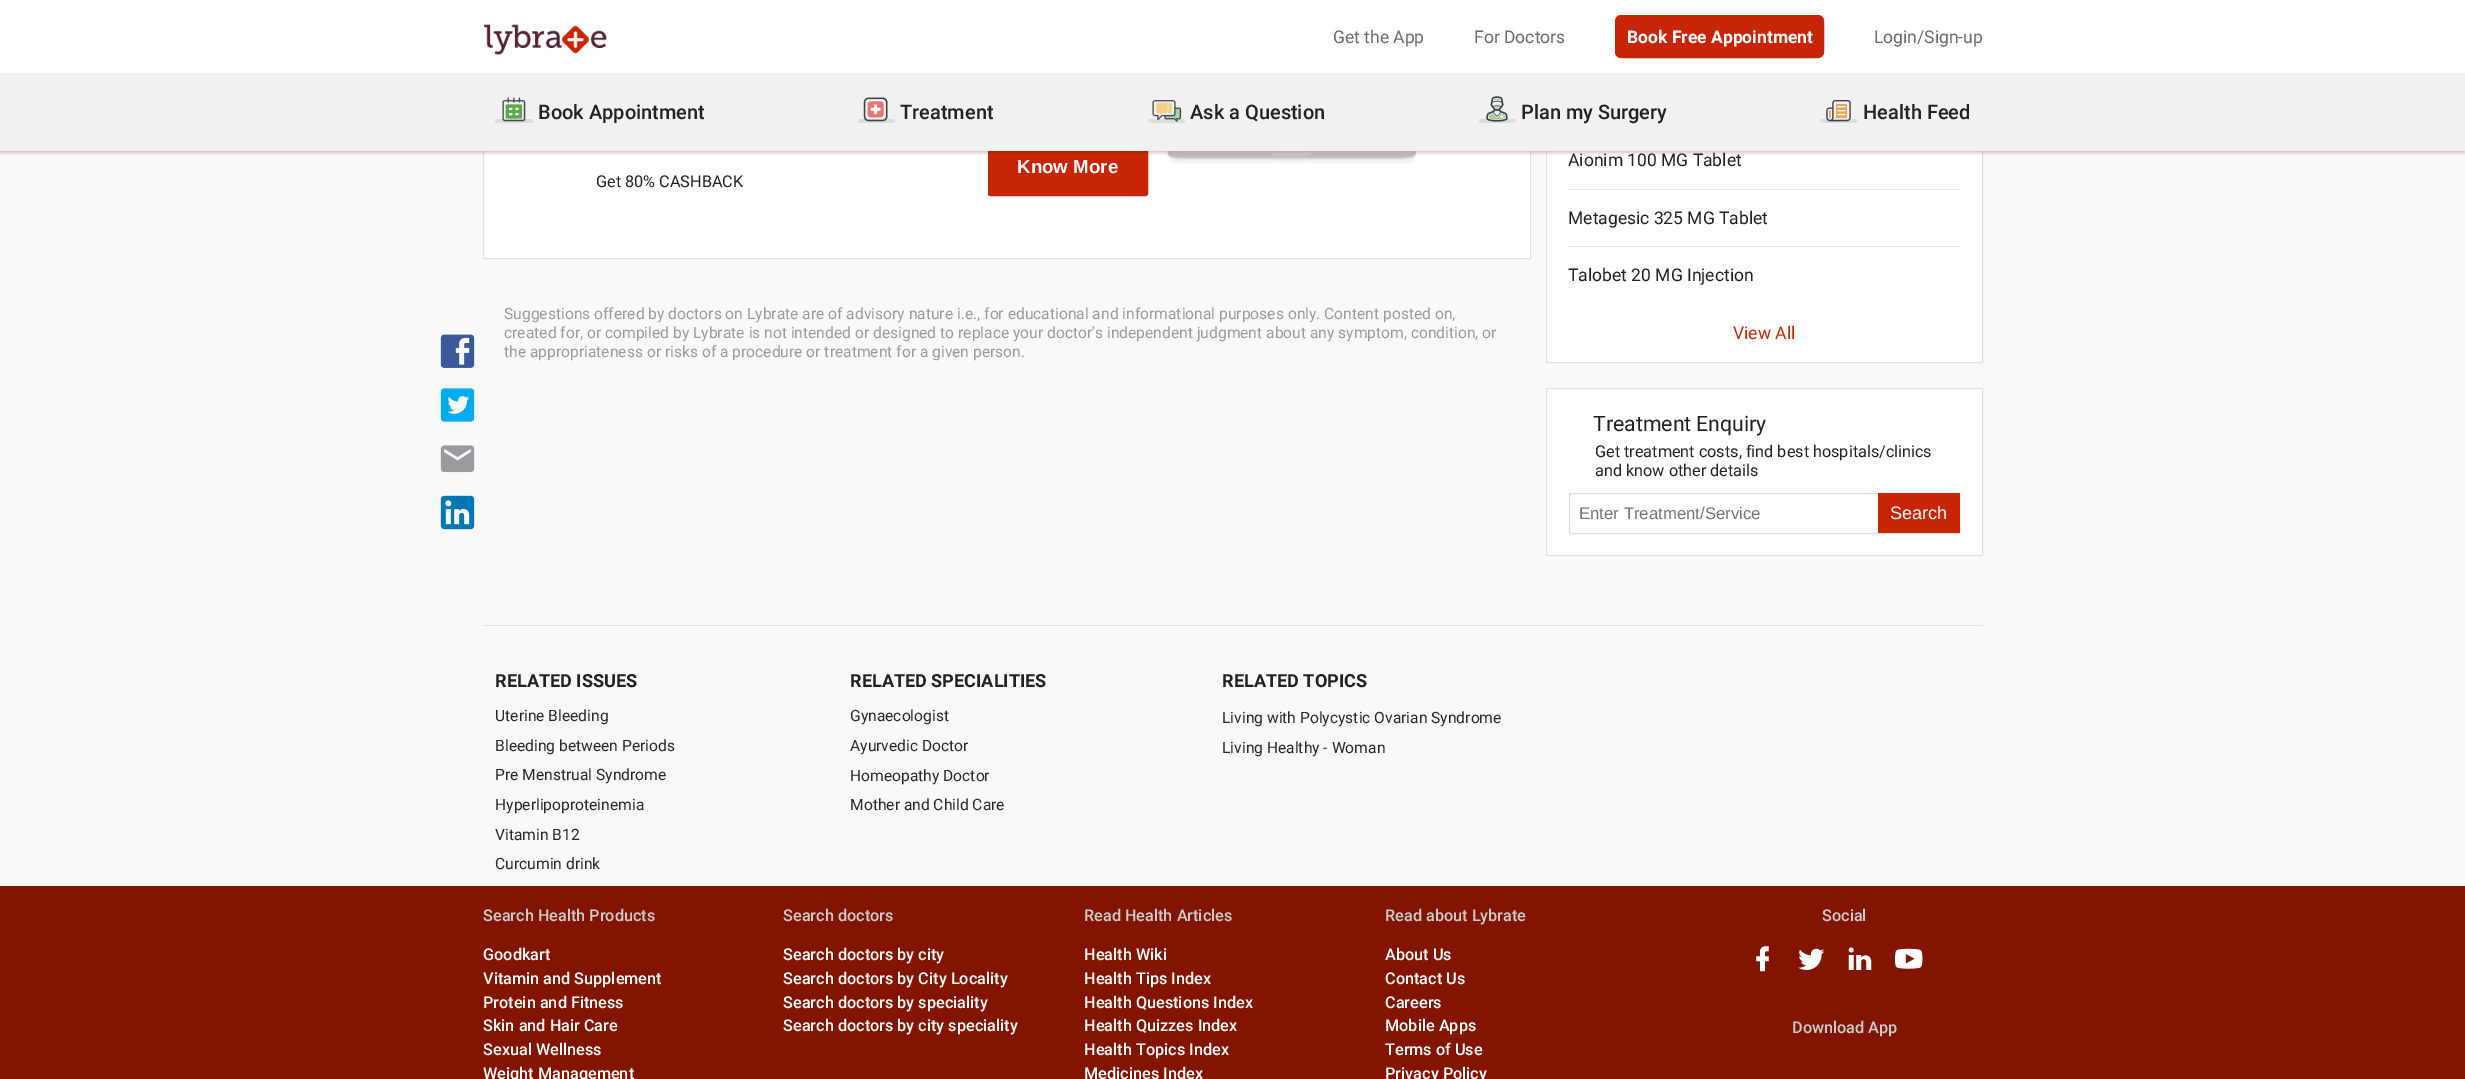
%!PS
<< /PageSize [2465 1079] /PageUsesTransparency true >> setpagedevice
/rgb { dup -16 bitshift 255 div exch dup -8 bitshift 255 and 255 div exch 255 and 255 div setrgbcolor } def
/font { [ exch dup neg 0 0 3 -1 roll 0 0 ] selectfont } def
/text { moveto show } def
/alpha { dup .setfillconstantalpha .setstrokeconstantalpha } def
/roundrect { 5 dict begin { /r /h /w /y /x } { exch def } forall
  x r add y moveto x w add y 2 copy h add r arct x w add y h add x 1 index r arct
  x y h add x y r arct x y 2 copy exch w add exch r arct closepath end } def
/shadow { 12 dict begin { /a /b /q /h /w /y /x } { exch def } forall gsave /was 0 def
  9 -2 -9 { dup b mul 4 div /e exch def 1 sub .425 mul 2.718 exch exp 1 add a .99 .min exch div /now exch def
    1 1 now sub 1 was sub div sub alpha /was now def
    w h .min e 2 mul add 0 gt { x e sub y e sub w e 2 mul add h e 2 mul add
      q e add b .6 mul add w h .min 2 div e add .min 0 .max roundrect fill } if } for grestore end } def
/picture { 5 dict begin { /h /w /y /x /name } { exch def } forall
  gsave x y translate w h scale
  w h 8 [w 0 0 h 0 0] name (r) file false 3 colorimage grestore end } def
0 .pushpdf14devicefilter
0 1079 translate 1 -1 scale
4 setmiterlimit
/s1 { /Roboto-Regular 17.5 font 16#6C6A6A rgb } def
/s2 { /Roboto-Bold 17.5 font 16#FFFFFF rgb } def
/s3 { /Roboto-Medium 20 font 16#222222 rgb } def
/s4 { /LiberationSans-Bold 18.75 font 16#FFFFFF rgb } def
/s5 { /Roboto-Regular 16.25 font 16#222222 rgb } def
/s6 { /Roboto-Regular 15.62 font 16#9A9B9F rgb } def
/s7 { /Roboto-Regular 17.5 font 16#222222 rgb } def
/s8 { /Roboto-Regular 17.5 font 16#C82506 rgb } def
/s9 { /Roboto-Regular 21.25 font 16#222222 rgb } def
/s10 { /LiberationSans-Regular 16.75 font 16#757575 rgb } def
/s11 { /LiberationSans-Regular 18.1 font 16#FFFFFF rgb } def
/s12 { /Roboto-Bold 18.1 font 16#222222 rgb } def
/s13 { /Roboto-Regular 15.62 font 16#292727 rgb } def
/s14 { /Roboto-Medium 16.25 font 16#CCCCCC rgb } def
/s15 { /Roboto-Medium 16.25 font 16#FFFFFF rgb } def
16#F9F9F9 rgb
0 0 2465 1079 rectfill
16#FFFFFF rgb
484 151 1046 107 rectfill
16#DEE2E2 rgb
483.5 -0.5 1047 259 rectstroke
(pic7.raw) 1167 151 250 13 picture
16#C82506 rgb
988.5 136.5 159 59 2 roundrect gsave fill grestore
stroke
16#FFFFFF rgb
1547 151 435 211 rectfill
16#DEE2E2 rgb
1546.5 -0.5 436 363 rectstroke
16#000000 rgb
0 74 2465 79 0 1 0.12 shadow
16#DD0909 rgb
0 74 2465 79 0 2 0.12 shadow
16#FFFFFF rgb
0 0 2465 73 rectfill
(pic1.raw) 484 24 123 31 picture
s1
(Get the App) 1333 43 text
(For Doctors) 1474 43 text
16#C82506 rgb
1615.5 15.5 208 42 5.5 roundrect gsave fill grestore
stroke
s2
(Book Free Appointment) 1627 43 text
s1
(Login/Sign-up) 1874 43 text
16#F1F1F1 rgb
0 73 2465 78 rectfill
(pic2.raw) 495 97 38 26 picture
s3
(Book Appointment) 538 119 text
(pic3.raw) 858 97 37 26 picture
(Treatment) 900 119 text
(pic4.raw) 1148 100 37 23 picture
(Ask a Question) 1190 119 text
(pic5.raw) 1479 96 37 27 picture
(Plan my Surgery) 1521 119 text
(pic6.raw) 1820 100 38 23 picture
(Health Feed) 1863 119 text
s4
(Know More) 1017 173 text
s5
(Get 80% CASHBACK) 596 187 text
s6
(Suggestions offered by doctors on Lybrate are of advisory nature i.e., for educational and informational purposes only. Content posted on,) 504 319 text
(created for, or compiled by Lybrate is not intended or designed to replace your doctor's independent judgment about any symptom, condition, or) 504 338 text
(the appropriateness or risks of a procedure or treatment for a given person.) 504 357 text
16#E6E6E6 rgb
1569 189 391 1 rectfill
s7
(Aionim 100 MG Tablet) 1568 166 text
16#E6E6E6 rgb
1569 246 391 1 rectfill
s7
(Metagesic 325 MG Tablet) 1568 224 text
(Talobet 20 MG Injection) 1568 281 text
s8
(View All) 1733 339 text
16#FFFFFF rgb
1546.5 388.5 moveto 1982.5 388.5 lineto 1982.5 555.5 lineto 1546.5 555.5 lineto closepath gsave fill grestore
16#DEE2E2 rgb
stroke
s9
(Treatment Enquiry) 1593 431 text
s5
(Get treatment costs, find best hospitals/clinics) 1595 457 text
(and know other details) 1595 476 text
16#DCE0E0 rgb
1569.5 493.5 390 40 rectstroke
s10
(Enter Treatment/Service) 1579 519 text
16#C82506 rgb
1878 493 82 40 rectfill
s11
(Search) 1890 519 text
(pic8.raw) 440 334 35 34 picture
(pic9.raw) 440 388 35 34 picture
(pic10.raw) 440 445 35 28 picture
(pic11.raw) 440 495 35 35 picture
16#E3E3E3 rgb
483 625 1500 1 rectfill
s12
(RELATED ISSUES) 495 687 text
s13
(Uterine Bleeding) 495 721 text
(Bleeding between Periods) 495 751 text
(Pre Menstrual Syndrome) 495 780 text
(Hyperlipoproteinemia) 495 810 text
(Vitamin B12) 495 840 text
(Curcumin drink) 495 869 text
s12
(RELATED SPECIALITIES) 850 687 text
s13
(Gynaecologist) 850 721 text
(Ayurvedic Doctor) 850 751 text
(Homeopathy Doctor) 850 781 text
(Mother and Child Care) 850 810 text
s12
(RELATED TOPICS) 1222 687 text
s13
(Living with Polycystic Ovarian Syndrome) 1222 723 text
(Living Healthy - Woman) 1222 753 text
16#831500 rgb
0 886 2465 193 rectfill
s14
(Search Health Products) 483 921 text
s15
(Goodkart) 483 960 text
(Vitamin and Supplement) 483 984 text
(Protein and Fitness) 483 1008 text
(Skin and Hair Care) 483 1031 text
(Sexual Wellness) 483 1055 text
(Weight Management) 483 1079 text
s14
(Search doctors) 783 921 text
s15
(Search doctors by city) 783 960 text
(Search doctors by City Locality) 783 984 text
(Search doctors by speciality) 783 1008 text
(Search doctors by city speciality) 783 1031 text
s14
(Read Health Articles) 1084 921 text
s15
(Health Wiki) 1084 960 text
(Health Tips Index) 1084 984 text
(Health Questions Index) 1084 1008 text
(Health Quizzes Index) 1084 1031 text
(Health Topics Index) 1084 1055 text
(Medicines Index) 1084 1079 text
s14
(Read about Lybrate) 1385 921 text
s15
(About Us) 1385 960 text
(Contact Us) 1385 984 text
(Careers) 1385 1008 text
(Mobile Apps) 1385 1031 text
(Terms of Use) 1385 1055 text
(Privacy Policy) 1385 1079 text
s14
(Social) 1822 921 text
(pic12.raw) 1756 946 13 26 picture
(pic13.raw) 1798 948 27 22 picture
(pic14.raw) 1848 947 24 23 picture
(pic15.raw) 1895 948 28 21 picture
(Download App) 1792 1033 text
.poppdf14devicefilter showpage
